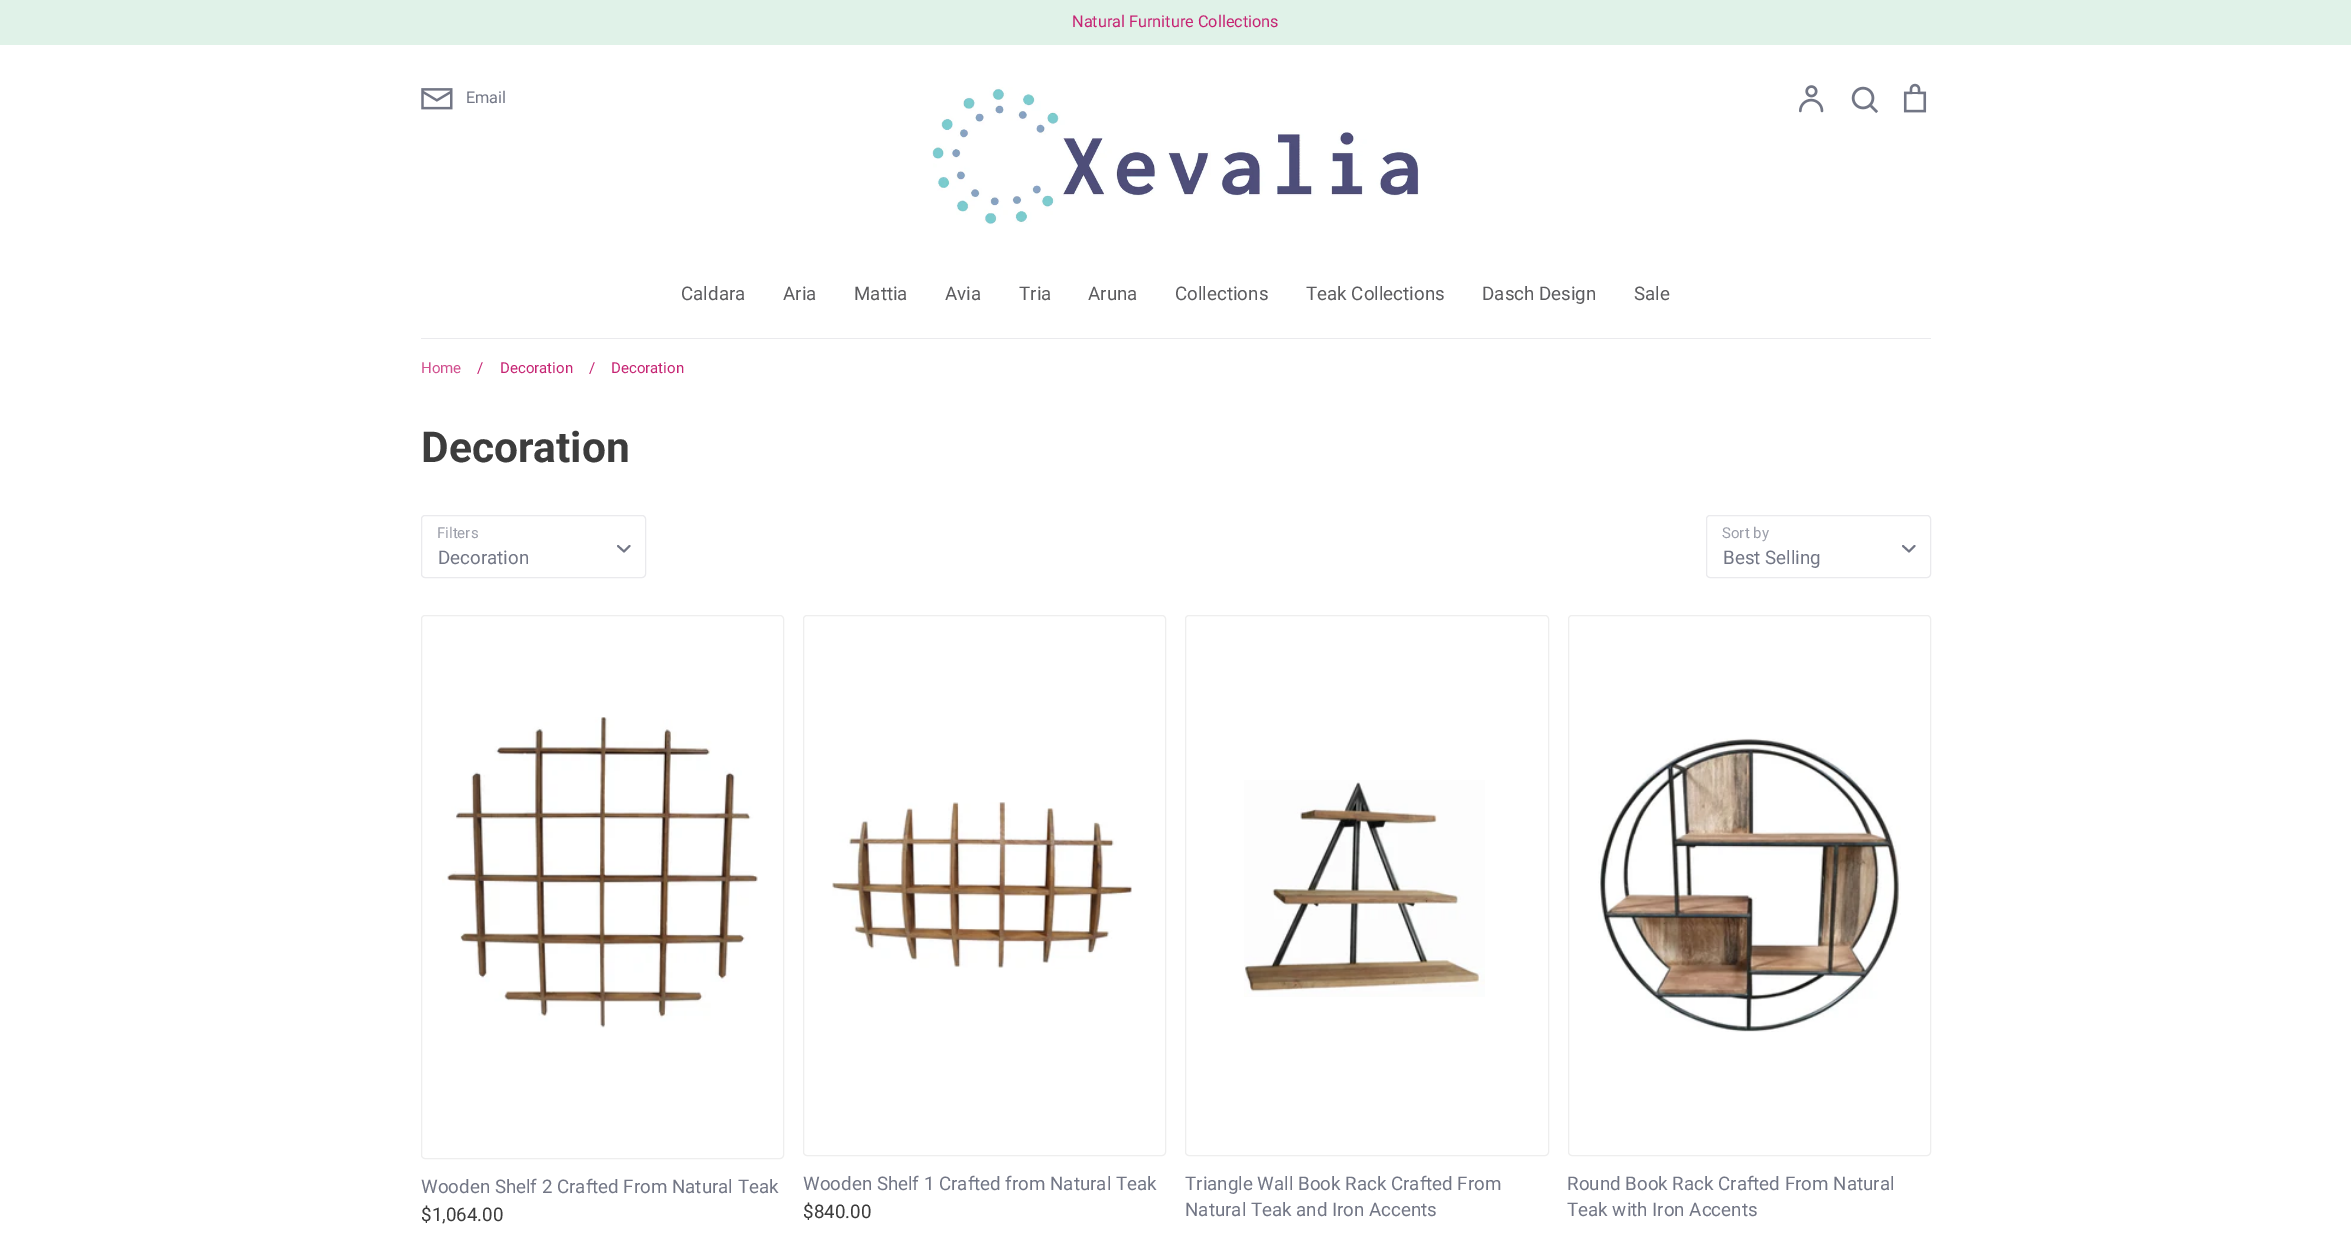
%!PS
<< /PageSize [2351 1234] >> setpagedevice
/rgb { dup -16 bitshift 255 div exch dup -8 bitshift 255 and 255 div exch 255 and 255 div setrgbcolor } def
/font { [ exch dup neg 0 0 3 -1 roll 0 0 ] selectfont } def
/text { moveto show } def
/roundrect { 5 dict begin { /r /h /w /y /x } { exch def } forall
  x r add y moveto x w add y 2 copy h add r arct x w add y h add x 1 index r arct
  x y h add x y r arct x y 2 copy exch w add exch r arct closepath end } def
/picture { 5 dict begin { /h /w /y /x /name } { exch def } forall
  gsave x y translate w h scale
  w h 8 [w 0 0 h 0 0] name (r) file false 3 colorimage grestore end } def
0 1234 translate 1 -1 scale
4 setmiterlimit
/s1 { /Roboto-Regular 16.25 font 16#C62473 rgb } def
/s2 { /Roboto-Regular 16.25 font 16#727685 rgb } def
/s3 { /Roboto-Regular 18.75 font 16#5C5C5F rgb } def
/s4 { /Roboto-Regular 15 font 16#D1508F rgb } def
/s5 { /Roboto-Regular 15 font 16#C62473 rgb } def
/s6 { /Roboto-Bold 42.5 font 16#3C3C3C rgb } def
/s7 { /Roboto-Regular 15 font 16#9C9FAA rgb } def
/s8 { /Roboto-Regular 18.75 font 16#727685 rgb } def
/s9 { /Roboto-Regular 18.75 font 16#3C3C3C rgb } def
16#FFFFFF rgb
0 0 2351 1234 rectfill
16#E0F2E8 rgb
0 0 2351 45 rectfill
s1
(Natural Furniture Collections) 1072 27 text
(pic1.raw) 421 88 32 22 picture
s2
(Email) 466 103 text
(pic2.raw) 932 87 487 138 picture
(pic3.raw) 1799 85 25 28 picture
(pic4.raw) 1851 86 28 27 picture
(pic5.raw) 1903 83 24 30 picture
16#EAEAED rgb
421 338 1510 1 rectfill
s3
(Caldara) 681 300 text
(Aria) 783 300 text
(Mattia) 854 300 text
(Avia) 945 300 text
(Tria) 1019 300 text
(Aruna) 1088 300 text
(Collections) 1175 300 text
(Teak Collections) 1306 300 text
(Dasch Design) 1482 300 text
(Sale) 1634 300 text
s4
(Home) 421 373 text
s5
(/) 477 373 text
(Decoration) 500 373 text
(/) 589 373 text
(Decoration) 611 373 text
s6
(Decoration) 421 462 text
s7
(Filters) 437 538 text
16#EAEAED rgb
421.5 515.5 224 62 3.5 roundrect stroke
16#727685 rgb
1.9 setlinewidth
1 setlinecap
1 setlinejoin
618 546 moveto 624 551.5 lineto 629.5 546 lineto stroke
s8
(Decoration) 438 564 text
s7
(Sort by) 1722 538 text
16#EAEAED rgb
1 setlinewidth
0 setlinecap
0 setlinejoin
1706.5 515.5 224 62 3.5 roundrect stroke
s8
(Best Selling) 1723 564 text
1.9 setlinewidth
1 setlinecap
1 setlinejoin
1903 546 moveto 1909 551.5 lineto 1914.5 546 lineto stroke
16#EEEEEE rgb
1 setlinewidth
0 setlinecap
0 setlinejoin
421.5 615.5 362 543 3.5 roundrect stroke
(pic6.raw) 442 717 316 311 picture
s8
(Wooden Shelf 2 Crafted From Natural Teak) 421 1193 text
s9
($1,064.00) 421 1221 text
16#EEEEEE rgb
803.5 615.5 362 540 3.5 roundrect stroke
(pic7.raw) 832 802 300 167 picture
s8
(Wooden Shelf 1 Crafted from Natural Teak) 803 1190 text
s9
($840.00) 803 1218 text
16#EEEEEE rgb
1185.5 615.5 363 540 3.5 roundrect stroke
(pic8.raw) 1244 780 241 217 picture
s8
(Triangle Wall Book Rack Crafted From) 1185 1190 text
(Natural Teak and Iron Accents) 1185 1216 text
16#EEEEEE rgb
1568.5 615.5 362 540 3.5 roundrect stroke
(pic9.raw) 1598 738 303 294 picture
s8
(Round Book Rack Crafted From Natural) 1567 1190 text
(Teak with Iron Accents) 1567 1216 text
showpage
